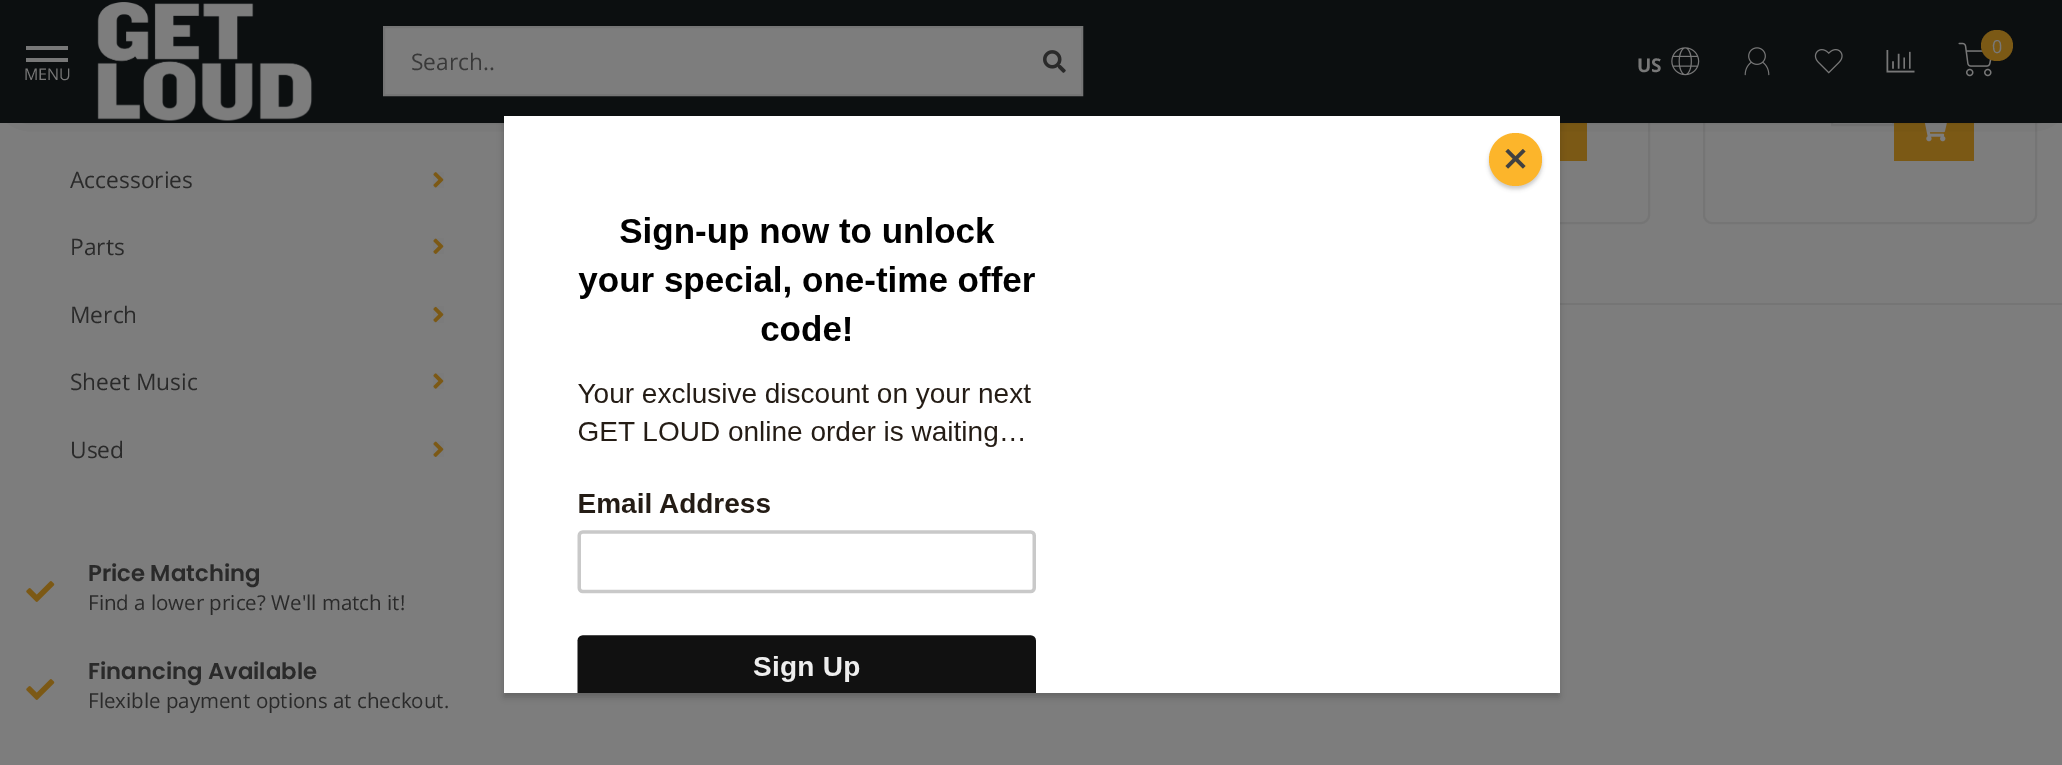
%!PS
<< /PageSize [2062 765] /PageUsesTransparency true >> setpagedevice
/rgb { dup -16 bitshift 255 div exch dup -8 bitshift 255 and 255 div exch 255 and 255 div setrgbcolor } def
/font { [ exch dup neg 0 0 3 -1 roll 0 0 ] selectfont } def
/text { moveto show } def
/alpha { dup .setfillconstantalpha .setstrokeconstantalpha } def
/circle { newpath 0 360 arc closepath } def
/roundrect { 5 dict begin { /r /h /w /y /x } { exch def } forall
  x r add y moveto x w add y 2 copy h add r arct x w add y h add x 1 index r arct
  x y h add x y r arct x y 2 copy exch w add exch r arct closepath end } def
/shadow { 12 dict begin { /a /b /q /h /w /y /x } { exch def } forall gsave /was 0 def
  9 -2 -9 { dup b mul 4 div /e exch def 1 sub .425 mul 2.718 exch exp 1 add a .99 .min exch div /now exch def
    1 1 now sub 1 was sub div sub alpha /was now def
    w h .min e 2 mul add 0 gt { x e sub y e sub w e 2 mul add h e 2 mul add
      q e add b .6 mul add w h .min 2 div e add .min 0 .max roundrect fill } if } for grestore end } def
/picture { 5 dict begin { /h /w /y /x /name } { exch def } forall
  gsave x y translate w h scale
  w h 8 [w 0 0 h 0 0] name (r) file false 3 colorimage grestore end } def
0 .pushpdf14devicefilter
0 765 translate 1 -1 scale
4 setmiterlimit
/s1 { /OpenSans-Regular 22.75 font 16#393939 rgb } def
/s2 { /OpenSans-Regular 18 font 16#787878 rgb } def
/s3 { /OpenSans-Bold 19 font 16#787878 rgb } def
/s4 { /OpenSans-Regular 16 font 16#787878 rgb } def
/s5 { /OpenSans-Regular 22.75 font 16#2A2A2A rgb } def
/s6 { /Poppins-SemiBold 22.75 font 16#2A2A2A rgb } def
/s7 { /OpenSans-Regular 20.5 font 16#2A2A2A rgb } def
16#7D7D7D rgb
0 0 2062 765 rectfill
16#757575 rgb
2 setlinewidth
1317 -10 332 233 8 roundrect stroke
16#7B5915 rgb
1560 123 27 38 rectfill
(pic13.raw) 1560 123 1 1 picture
16#757575 rgb
1704 -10 332 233 8 roundrect stroke
1832 64 61 61 rectstroke
16#7B5915 rgb
1894 123 80 38 rectfill
(pic14.raw) 1924 123 23 19 picture
16#000000 rgb
23 23 2018 77 0 14 0.8 shadow
16#0C0F10 rgb
0 0 2062 123 rectfill
16#7D7D7D rgb
384 27 moveto 1082 27 lineto 1082 95 lineto 384 95 lineto closepath gsave fill grestore
16#757575 rgb
stroke
s1
(Search..) 411 70 text
(pic1.raw) 1043 50 23 23 picture
(pic2.raw) 1958 42 34 35 picture
16#7B5915 rgb
1981 30 32 31 15.5 roundrect fill
s2
(0) 1992 53 text
s3
(US) 1637 72 text
(pic3.raw) 1671 47 29 29 picture
(pic4.raw) 1744 47 26 29 picture
(pic5.raw) 1814 49 29 25 picture
(pic6.raw) 1886 50 29 23 picture
26 46 42 4 rectfill
26 58 42 4 rectfill
s4
(MENU) 24 80 text
(pic7.raw) 97 2 216 119 picture
s5
(Accessories) 70 188 text
(pic8.raw) 433 172 11 16 picture
(Parts) 70 255 text
(pic9.raw) 433 238 11 16 picture
(Merch) 70 323 text
(pic10.raw) 433 306 11 17 picture
(Sheet Music) 70 390 text
(pic11.raw) 433 373 11 16 picture
(Used) 70 458 text
(pic9.raw) 433 441 11 16 picture
s6
(Price Matching) 88 581 text
(pic12.raw) 26 581 29 21 picture
s7
(Find a lower price? We'll match it!) 88 610 text
s6
(Financing Available) 88 679 text
(pic12.raw) 26 679 29 21 picture
s7
(Flexible payment options at checkout.) 88 708 text
16#757575 rgb
1560 303 502 2 rectfill
16#000000 rgb
504 119 1055 578 0 3.5 0.2 shadow
(pic15.raw) 504 116 1056 577 picture
1489 137 53 52 26 2 0.2 shadow
16#FCB52B rgb
1515.5 159.5 26.5 circle fill
16#414141 rgb
1523 149 moveto 1525.5 151.5 lineto 1508 168.5 lineto 1505.5 166 lineto closepath fill
1505.5 151.5 moveto 1508 149 lineto 1525.5 166 lineto 1523 168.5 lineto closepath fill
.poppdf14devicefilter showpage
